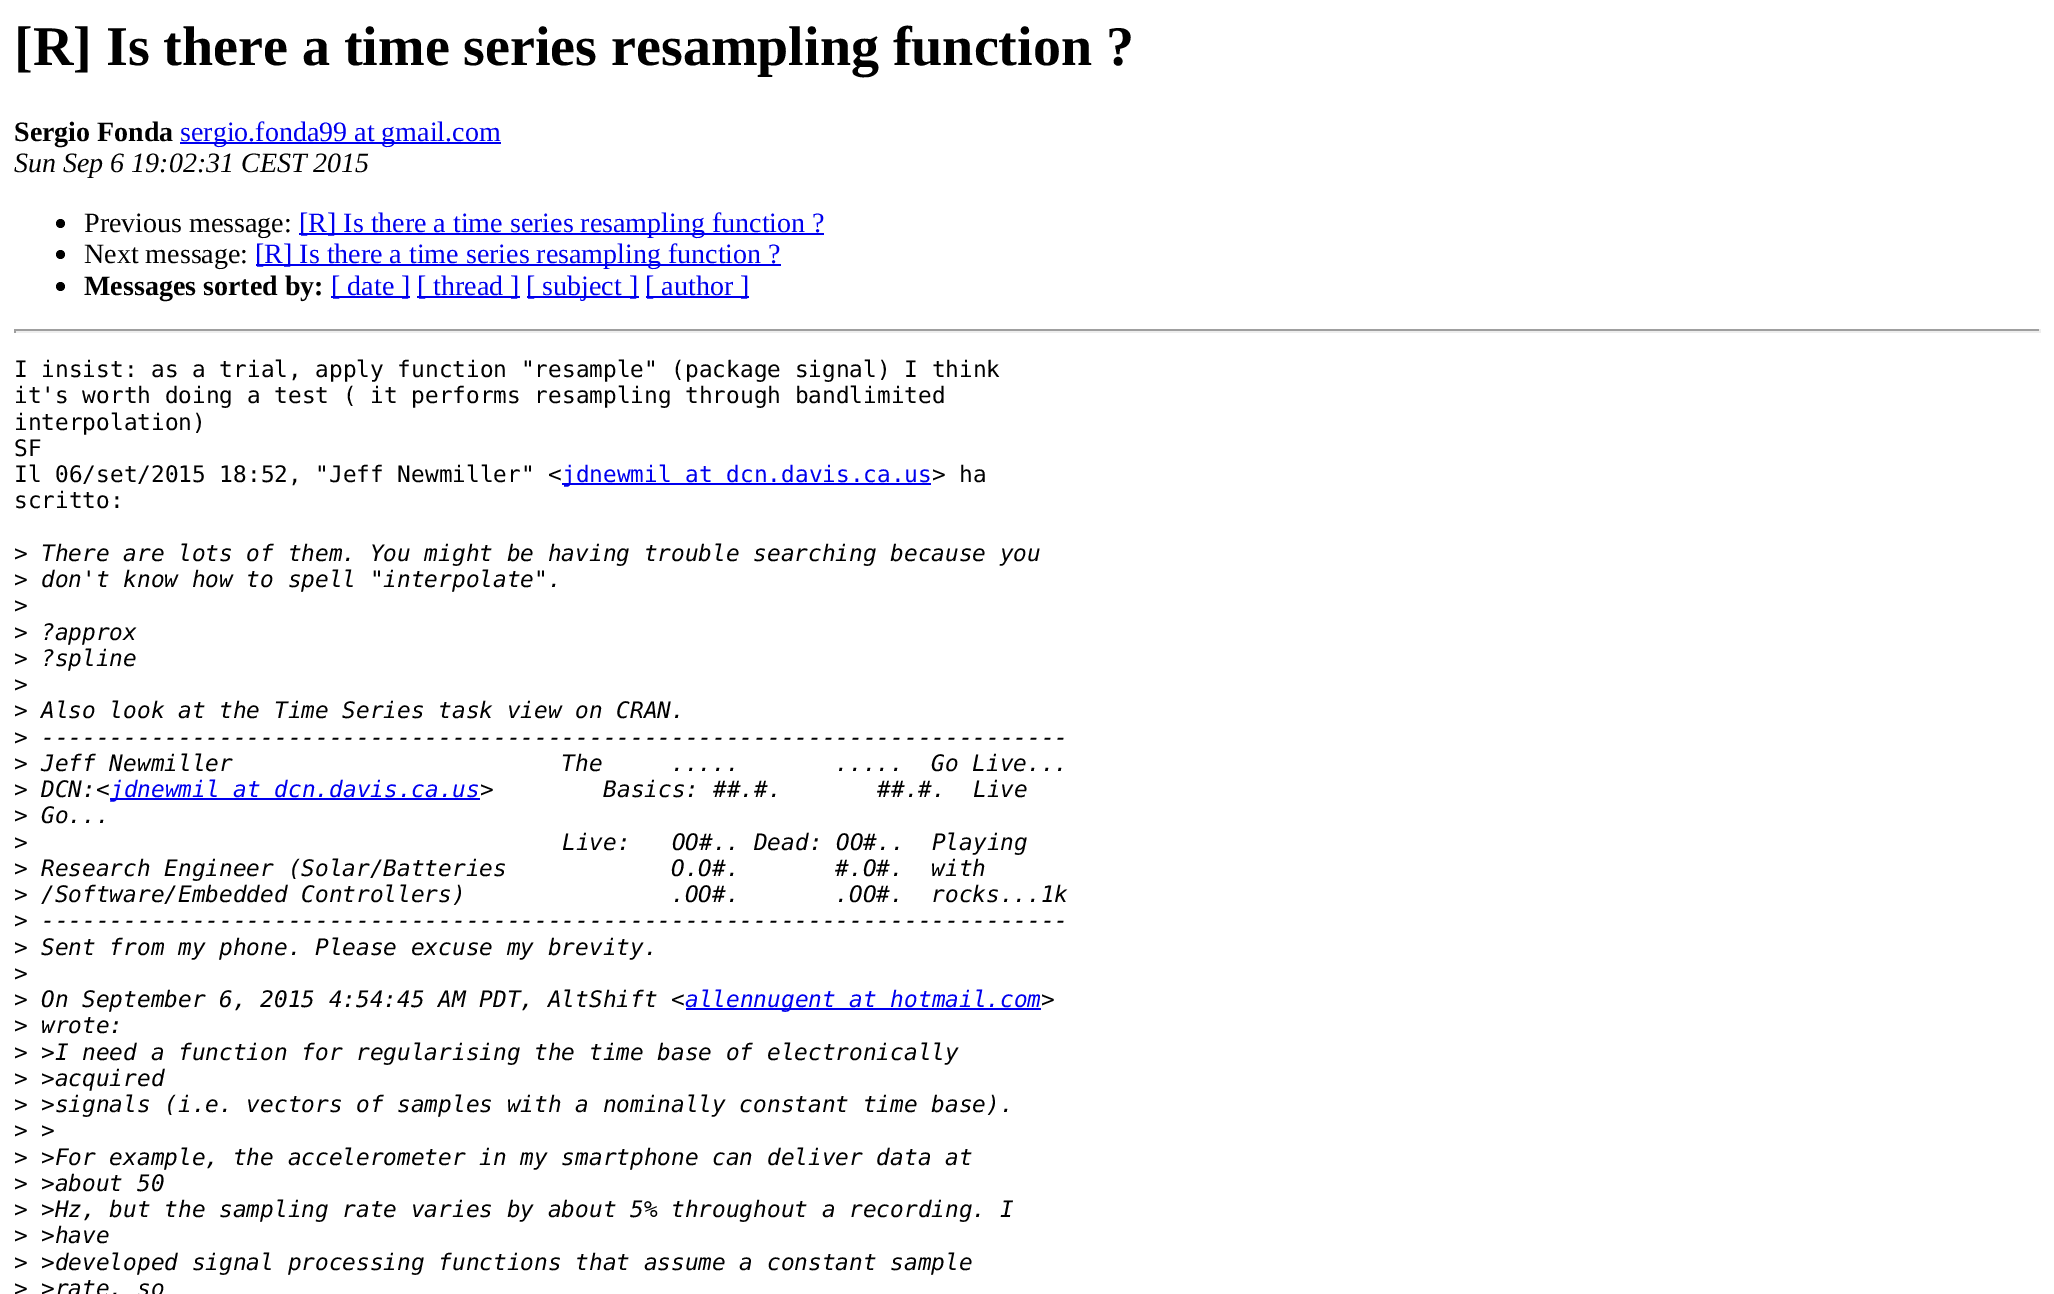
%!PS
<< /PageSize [2054 1294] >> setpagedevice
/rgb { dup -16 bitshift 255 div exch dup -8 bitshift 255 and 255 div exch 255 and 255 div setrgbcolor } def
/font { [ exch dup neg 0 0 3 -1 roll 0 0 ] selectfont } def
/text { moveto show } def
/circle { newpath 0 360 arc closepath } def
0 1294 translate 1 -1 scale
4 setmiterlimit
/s1 { /LiberationSerif-Bold 56 font 16#000000 rgb } def
/s2 { /LiberationSerif-Bold 28 font 16#000000 rgb } def
/s3 { /LiberationSerif-Regular 28 font 16#0000EE rgb } def
/s4 { /LiberationSerif-Italic 28 font 16#000000 rgb } def
/s5 { /LiberationSerif-Regular 28 font 16#000000 rgb } def
/s6 { /DejaVuSansMono-Regular 22.75 font 16#000000 rgb } def
/s7 { /DejaVuSansMono-Regular 22.75 font 16#0000EE rgb } def
/s8 { /DejaVuSansMono-Italic 22.75 font 16#000000 rgb } def
/s9 { /DejaVuSansMono-Italic 22.75 font 16#0000EE rgb } def
16#FFFFFF rgb
0 0 2054 1294 rectfill
s1
([R] Is there a time series resampling function ?) 14 65 text
s2
(Sergio Fonda) 14 141 text
16#0000EE rgb
180 142 321 2 rectfill
s3
(sergio.fonda99 at gmail.com) 180 141 text
s4
(Sun Sep 6 19:02:31 CEST 2015) 14 172 text
60.5 223.5 4.5 circle fill
s5
(Previous message:) 84 232 text
16#0000EE rgb
299 233 525 2 rectfill
([R] Is there a time series resampling function ?) 299 232 text
16#000000 rgb
60.5 254.5 4.5 circle fill
(Next message:) 84 263 text
16#0000EE rgb
256 264 525 2 rectfill
([R] Is there a time series resampling function ?) 255 263 text
16#000000 rgb
60.5 286.5 4.5 circle fill
s2
(Messages sorted by:) 84 295 text
16#0000EE rgb
331 296 79 2 rectfill
s3
([ date ]) 331 295 text
417 296 103 2 rectfill
([ thread ]) 417 295 text
527 296 112 2 rectfill
([ subject ]) 526 295 text
646 296 103 2 rectfill
([ author ]) 645 295 text
16#9F9F9F rgb
14 329 2027 2 rectfill
16#EEEEEE rgb
2039 329 2 4 rectfill
14 331 2027 2 rectfill
16#9F9F9F rgb
14 329 2 4 rectfill
s6
(I insist: as a trial, apply function "resample" \(package signal\) I think) 14 377 text
(it's worth doing a test \( it performs resampling through bandlimited) 14 403 text
(interpolation\)) 14 430 text
(SF) 14 456 text
(Il 06/set/2015 18:52, "Jeff Newmiller" <) 14 482 text
16#0000EE rgb
562 483 369 2 rectfill
(jdnewmil at dcn.davis.ca.us) 562 482 text
s6
(> ha) 932 482 text
(scritto:) 14 508 text
(>) 14 561 text
s8
(There are lots of them. You might be having trouble searching because you) 41 561 text
s6
(>) 14 587 text
s8
(don't know how to spell "interpolate".) 41 587 text
s6
(>) 14 613 text
(>) 14 640 text
s8
(?approx) 41 640 text
s6
(>) 14 666 text
s8
(?spline) 41 666 text
s6
(>) 14 692 text
(>) 14 718 text
s8
(Also look at the Time Series task view on CRAN.) 41 718 text
s6
(>) 14 745 text
s8
(---------------------------------------------------------------------------) 41 745 text
s6
(>) 14 771 text
s8
(Jeff Newmiller                        The     .....       .....  Go Live...) 41 771 text
s6
(>) 14 797 text
s8
(DCN:<) 41 797 text
16#0000EE rgb
110 798 370 2 rectfill
(jdnewmil at dcn.davis.ca.us) 110 797 text
s8
(>        Basics: ##.#.       ##.#.  Live) 480 797 text
s6
(>) 14 823 text
s8
(Go...) 41 823 text
s6
(>) 14 850 text
s8
(Live:   OO#.. Dead: OO#..  Playing) 562 850 text
s6
(>) 14 876 text
s8
(Research Engineer \(Solar/Batteries            O.O#.       #.O#.  with) 41 876 text
s6
(>) 14 902 text
s8
(/Software/Embedded Controllers\)               .OO#.       .OO#.  rocks...1k) 41 902 text
s6
(>) 14 928 text
s8
(---------------------------------------------------------------------------) 41 928 text
s6
(>) 14 955 text
s8
(Sent from my phone. Please excuse my brevity.) 41 955 text
s6
(>) 14 981 text
(>) 14 1007 text
s8
(On September 6, 2015 4:54:45 AM PDT, AltShift <) 41 1007 text
16#0000EE rgb
686 1008 355 2 rectfill
(allennugent at hotmail.com) 685 1007 text
s8
(>) 1041 1007 text
s6
(>) 14 1033 text
s8
(wrote:) 41 1033 text
s6
(>) 14 1060 text
s8
(>I need a function for regularising the time base of electronically) 41 1060 text
s6
(>) 14 1086 text
s8
(>acquired) 41 1086 text
s6
(>) 14 1112 text
s8
(>signals \(i.e. vectors of samples with a nominally constant time base\).) 41 1112 text
s6
(>) 14 1138 text
s8
(>) 41 1138 text
s6
(>) 14 1165 text
s8
(>For example, the accelerometer in my smartphone can deliver data at) 41 1165 text
s6
(>) 14 1191 text
s8
(>about 50) 41 1191 text
s6
(>) 14 1217 text
s8
(>Hz, but the sampling rate varies by about 5% throughout a recording. I) 41 1217 text
s6
(>) 14 1243 text
s8
(>have) 41 1243 text
s6
(>) 14 1270 text
s8
(>developed signal processing functions that assume a constant sample) 41 1270 text
s6
(>) 14 1296 text
s8
(>rate, so) 41 1296 text
showpage
